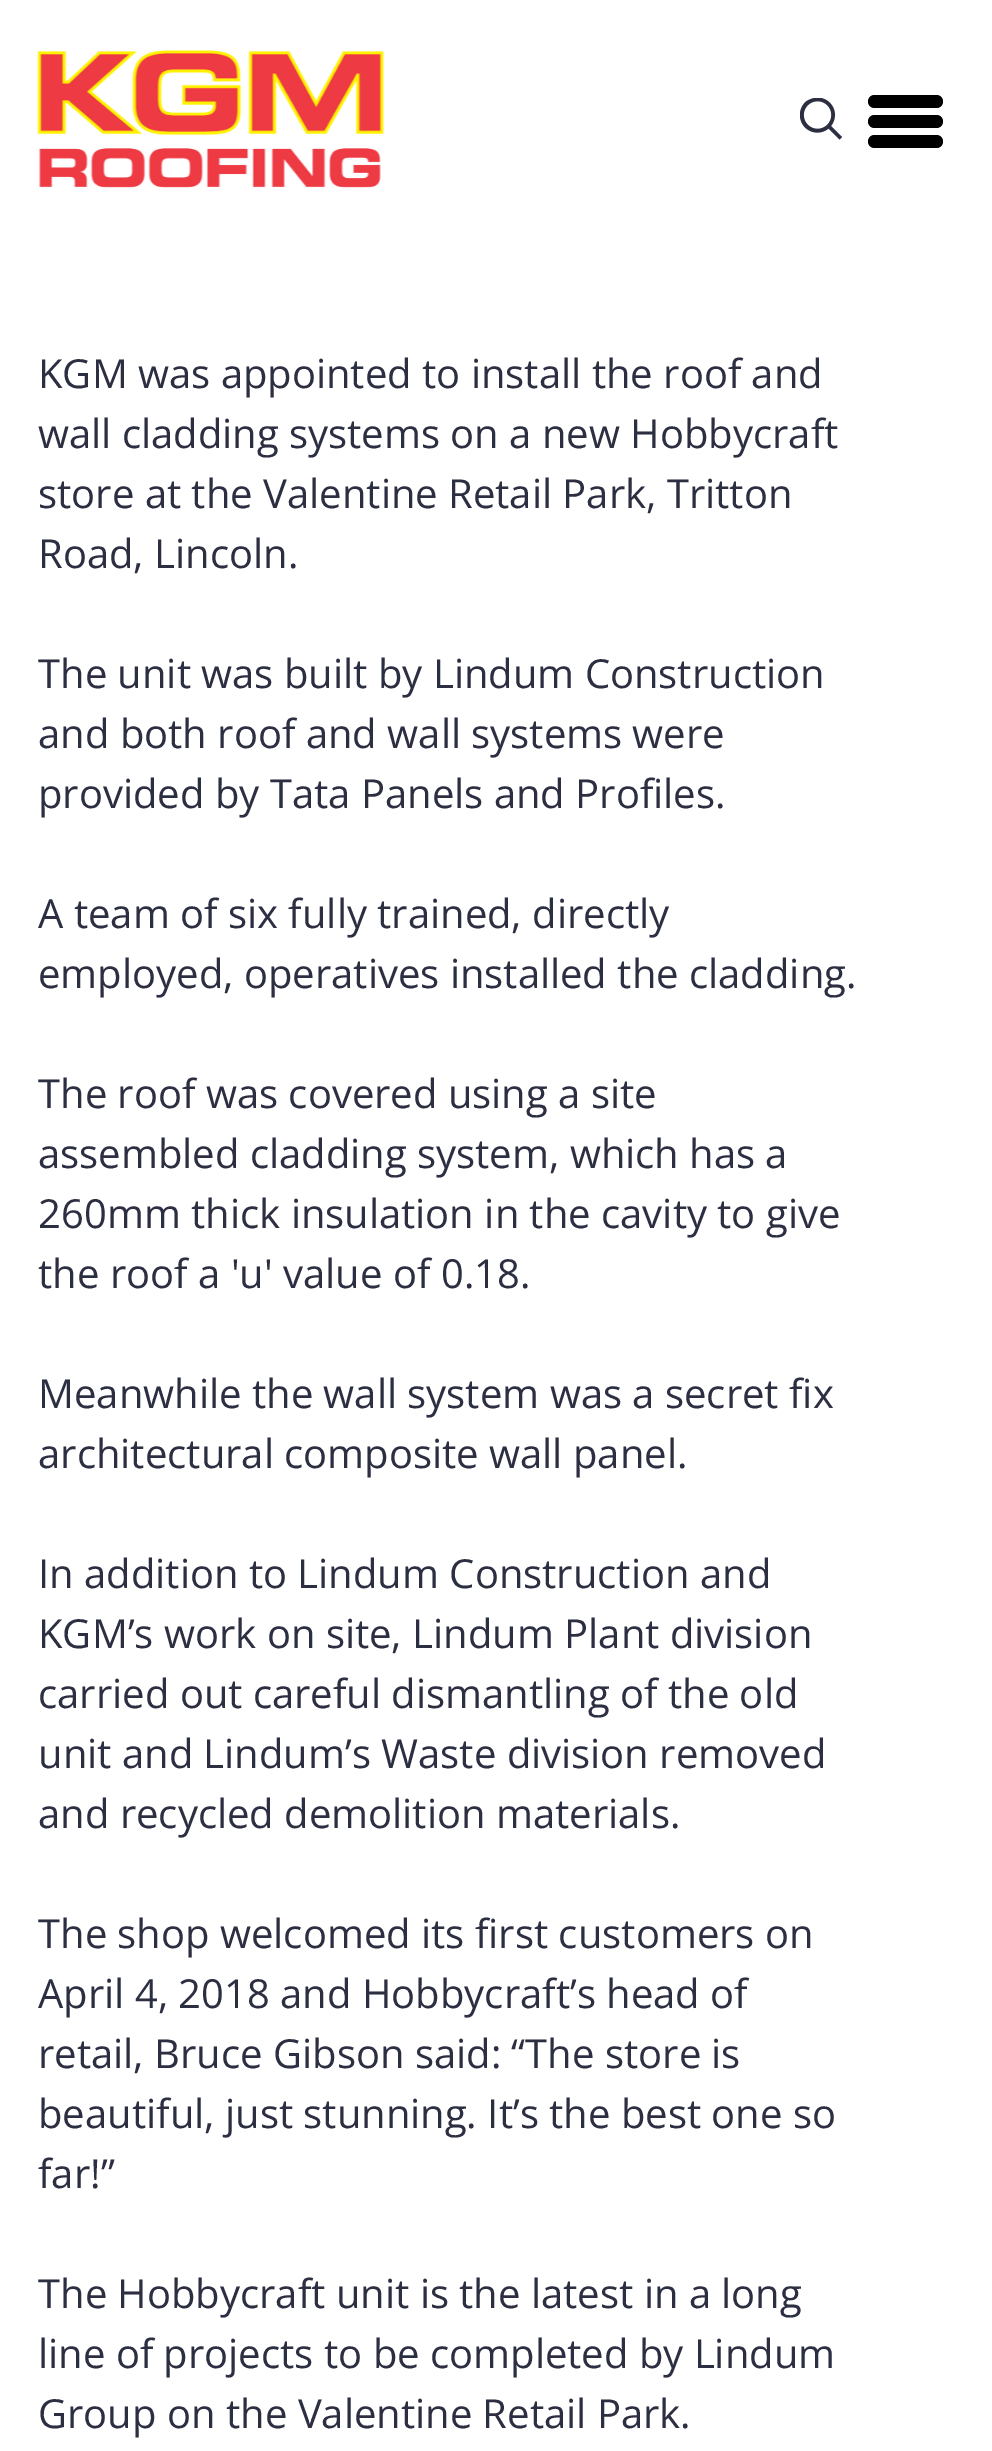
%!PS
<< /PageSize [992 2451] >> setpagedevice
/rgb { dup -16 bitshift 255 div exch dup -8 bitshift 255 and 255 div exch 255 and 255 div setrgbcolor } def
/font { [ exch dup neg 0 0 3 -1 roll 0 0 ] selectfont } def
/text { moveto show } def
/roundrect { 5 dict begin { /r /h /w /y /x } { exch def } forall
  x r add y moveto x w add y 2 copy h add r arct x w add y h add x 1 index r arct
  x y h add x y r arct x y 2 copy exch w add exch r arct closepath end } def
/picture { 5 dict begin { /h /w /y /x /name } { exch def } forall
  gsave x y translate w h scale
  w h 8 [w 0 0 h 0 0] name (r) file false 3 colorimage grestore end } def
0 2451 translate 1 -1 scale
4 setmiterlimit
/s1 { /OpenSans-Regular 40 font 16#2C2E41 rgb } def
16#FFFFFF rgb
0 0 992 2451 rectfill
(pic1.raw) 37 50 347 138 picture
(pic2.raw) 800 98 43 42 picture
16#000000 rgb
868 95 75 13 6.5 roundrect fill
868 115 75 13 6.5 roundrect fill
868 135 75 13 6.5 roundrect fill
s1
(KGM was appointed to install the roof and) 38 388 text
(wall cladding systems on a new Hobbycraft) 38 448 text
(store at the Valentine Retail Park, Tritton) 38 508 text
(Road, Lincoln.) 38 568 text
(The unit was built by Lindum Construction) 38 688 text
(and both roof and wall systems were) 38 748 text
(provided by Tata Panels and Profiles.) 38 808 text
(A team of six fully trained, directly) 38 928 text
(employed, operatives installed the cladding.) 38 988 text
(The roof was covered using a site) 38 1108 text
(assembled cladding system, which has a) 38 1168 text
(260mm thick insulation in the cavity to give) 38 1228 text
(the roof a 'u' value of 0.18.) 38 1288 text
(Meanwhile the wall system was a secret fix) 38 1408 text
(architectural composite wall panel.) 38 1468 text
(In addition to Lindum Construction and) 38 1588 text
(KGM’s work on site, Lindum Plant division) 38 1648 text
(carried out careful dismantling of the old) 38 1708 text
(unit and Lindum’s Waste division removed) 38 1768 text
(and recycled demolition materials.) 38 1828 text
(The shop welcomed its first customers on) 38 1948 text
(April 4, 2018 and Hobbycraft’s head of) 38 2008 text
(retail, Bruce Gibson said: “The store is) 38 2068 text
(beautiful, just stunning. It’s the best one so) 38 2128 text
(far!”) 38 2188 text
(The Hobbycraft unit is the latest in a long) 38 2308 text
(line of projects to be completed by Lindum) 38 2368 text
(Group on the Valentine Retail Park.) 38 2428 text
showpage
